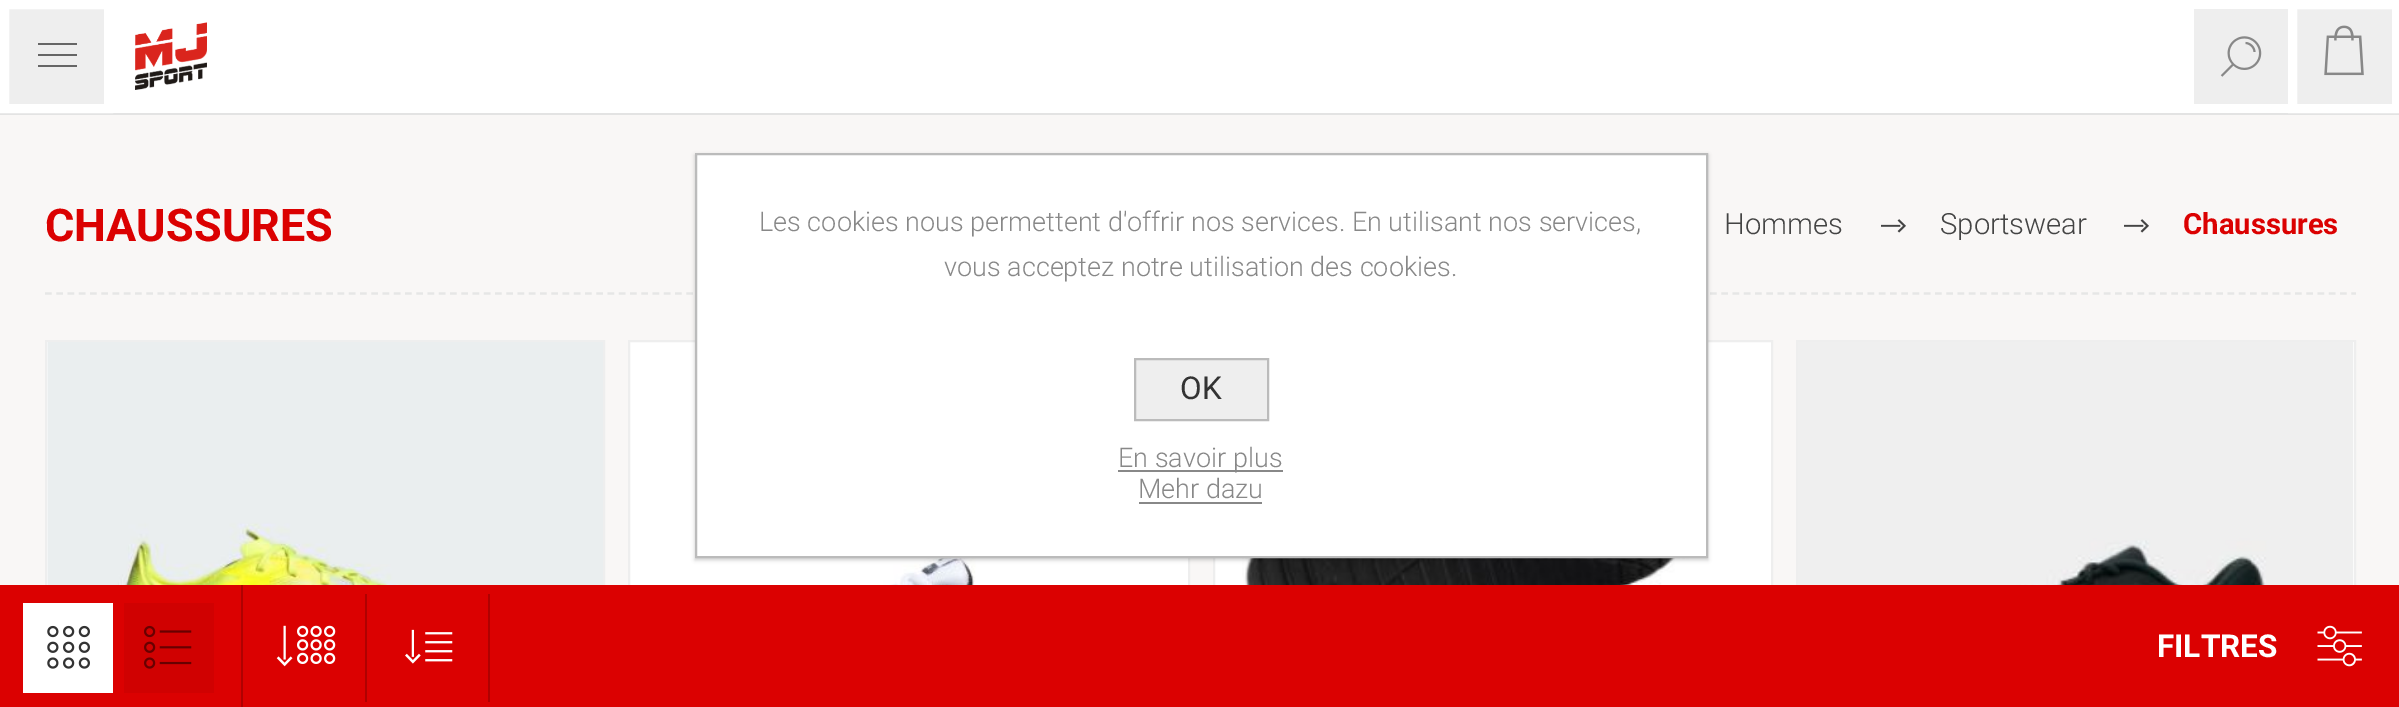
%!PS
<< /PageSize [2399 707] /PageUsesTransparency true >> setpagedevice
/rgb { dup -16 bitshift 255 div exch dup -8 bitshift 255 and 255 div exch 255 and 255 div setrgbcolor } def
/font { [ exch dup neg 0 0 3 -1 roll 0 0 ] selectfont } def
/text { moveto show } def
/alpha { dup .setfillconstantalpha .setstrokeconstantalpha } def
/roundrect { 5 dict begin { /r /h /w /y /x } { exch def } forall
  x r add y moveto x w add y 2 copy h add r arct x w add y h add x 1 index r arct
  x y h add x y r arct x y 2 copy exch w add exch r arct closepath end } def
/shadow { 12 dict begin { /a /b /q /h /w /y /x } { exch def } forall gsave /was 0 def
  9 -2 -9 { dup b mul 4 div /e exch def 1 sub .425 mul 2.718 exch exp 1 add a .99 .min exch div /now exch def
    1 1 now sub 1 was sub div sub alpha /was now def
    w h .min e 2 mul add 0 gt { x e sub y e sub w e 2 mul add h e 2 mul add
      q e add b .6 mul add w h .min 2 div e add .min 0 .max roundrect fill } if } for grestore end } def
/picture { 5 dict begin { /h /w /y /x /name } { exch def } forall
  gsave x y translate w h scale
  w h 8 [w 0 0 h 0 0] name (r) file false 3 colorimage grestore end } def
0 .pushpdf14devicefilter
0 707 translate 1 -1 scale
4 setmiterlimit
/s1 { /Roboto-Bold 45 font 16#DB0101 rgb } def
/s2 { /Roboto-Light 29.25 font 16#444444 rgb } def
/s3 { /Roboto-Bold 29.25 font 16#DB0101 rgb } def
/s4 { /Roboto-Bold 31.5 font 16#FFFFFF rgb } def
/s5 { /Roboto-Light 27 font 16#888888 rgb } def
/s6 { /Roboto-Regular 31.5 font 16#333333 rgb } def
16#F9F7F6 rgb
0 0 2399 707 rectfill
16#E3E3E3 rgb
0 112 moveto 0 115 lineto 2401 115 lineto 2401 2 lineto 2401 112 lineto closepath fill
16#FFFFFF rgb
113 0 2175 113 rectfill
(pic1.raw) 135 22 72 68 picture
16#EEEEEE rgb
2194 9 94 95 rectfill
(pic2.raw) 2220 36 42 41 picture
4.5 4.5 moveto 108.5 4.5 lineto 108.5 108.5 lineto 4.5 108.5 lineto closepath gsave fill grestore
16#FFFFFF rgb
9 setlinewidth
stroke
16#666666 rgb
38 43 39 2 rectfill
38 54 39 2 rectfill
38 65 39 2 rectfill
16#EEEEEE rgb
2292.5 4.5 moveto 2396.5 4.5 lineto 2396.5 108.5 lineto 2292.5 108.5 lineto closepath gsave fill grestore
16#FFFFFF rgb
stroke
(pic3.raw) 2324 25 40 51 picture
16#E6E6E6 rgb
2.2 setlinewidth
[6.75 4.5] 0 setdash
45 293.5 moveto 2356 293.5 lineto stroke
s1
(CHAUSSURES) 45 241 text
s2
(Hommes) 1724 234 text
(pic4.raw) 1881 219 25 14 picture
(Sportswear) 1940 234 text
(pic4.raw) 2124 219 25 14 picture
s3
(Chaussures) 2183 234 text
16#FFFFFF rgb
47 342 1 243 rectfill
16#EEEEEE rgb
2 setlinewidth
[] 0 setdash
46 341 558 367 rectstroke
(pic5.raw) 47 342 556 243 picture
16#FFFFFF rgb
630 342 558 243 rectfill
16#EEEEEE rgb
629 341 560 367 rectstroke
(pic6.raw) 680 548 443 37 picture
16#FFFFFF rgb
1215 342 556 243 rectfill
16#EEEEEE rgb
1214 341 558 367 rectstroke
(pic7.raw) 1242 412 500 173 picture
16#FFFFFF rgb
2353 342 1 243 rectfill
16#EEEEEE rgb
1797 341 558 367 rectstroke
(pic8.raw) 1798 342 556 243 picture
16#DB0101 rgb
0 585 2399 122 rectfill
16#AF0101 rgb
241 585 2 122 rectfill
16#FFFFFF rgb
23 603 90 90 rectfill
(pic9.raw) 47 625 43 44 picture
16#D00101 rgb
124 603 90 90 rectfill
(pic10.raw) 144 625 48 44 picture
(pic11.raw) 276 625 60 42 picture
16#AF0101 rgb
365 594 2 108 rectfill
(pic12.raw) 405 629 48 35 picture
488 594 2 108 rectfill
s4
(FILTRES) 2157 657 text
(pic13.raw) 2317 625 45 42 picture
16#000000 rgb
695 155 1013 405 0 2 0.2 shadow
16#FFFFFF rgb
696 154 moveto 1707 154 lineto 1707 557 lineto 696 557 lineto closepath gsave fill grestore
16#BBBBBB rgb
stroke
s5
(Les cookies nous permettent d'offrir nos services. En utilisant nos services,) 759 231 text
(vous acceptez notre utilisation des cookies.) 944 276 text
16#EEEEEE rgb
1135 359 moveto 1268 359 lineto 1268 420 lineto 1135 420 lineto closepath gsave fill grestore
16#BBBBBB rgb
stroke
s6
(OK) 1180 399 text
16#888888 rgb
1118 470 165 2 rectfill
s5
(En savoir plus) 1118 467 text
(Mehr dazu) 1138 498 text
1139 502 123 2 rectfill
.poppdf14devicefilter showpage
